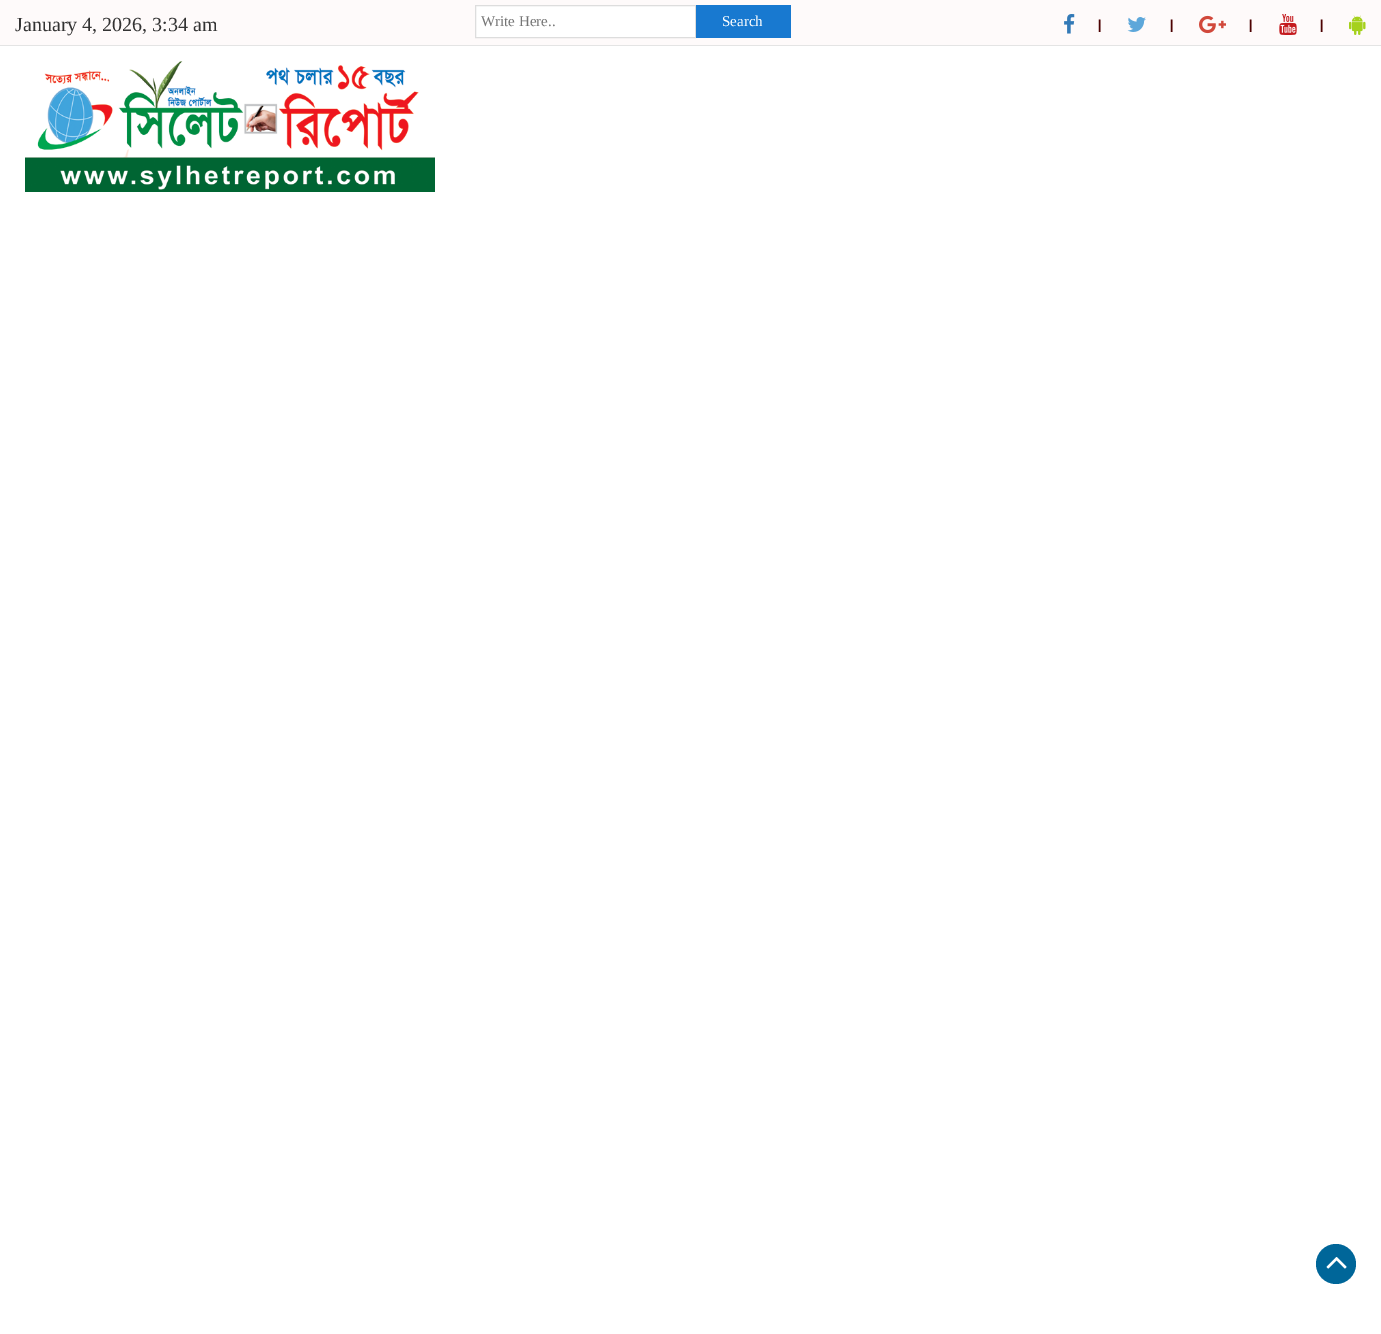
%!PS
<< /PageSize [1381 1334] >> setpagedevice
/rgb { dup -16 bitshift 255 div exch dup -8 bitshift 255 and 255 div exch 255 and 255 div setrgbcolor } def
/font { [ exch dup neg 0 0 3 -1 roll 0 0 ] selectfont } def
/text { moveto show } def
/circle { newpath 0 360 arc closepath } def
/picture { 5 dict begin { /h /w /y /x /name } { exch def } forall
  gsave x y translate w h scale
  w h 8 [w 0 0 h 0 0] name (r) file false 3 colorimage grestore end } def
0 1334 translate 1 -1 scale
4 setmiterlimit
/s1 { /LiberationSerif-Regular 20 font 16#333333 rgb } def
/s2 { /LiberationSerif-Regular 15 font 16#757575 rgb } def
/s3 { /LiberationSerif-Regular 15 font 16#FFFFFF rgb } def
/s4 { /NotoSans-Regular 20 font 16#4D0202 rgb } def
16#FFFFFF rgb
0 0 1381 1334 rectfill
16#FEFAFA rgb
0 0 1381 45 rectfill
16#E4E4E4 rgb
0 45 1381 1 rectfill
s1
(January 4, 2026, 3:34 am) 15 31 text
16#FFFFFF rgb
475.5 5.5 moveto 695.5 5.5 lineto 695.5 37.5 lineto 475.5 37.5 lineto closepath gsave fill grestore
16#DDDDDD rgb
stroke
s2
(Write Here..) 481 26 text
16#1879D0 rgb
696 5 95 33 rectfill
s3
(Search) 722 26 text
(pic1.raw) 1064 14 11 20 picture
s4
(।) 1095 32 text
(pic2.raw) 1127 17 19 15 picture
(।) 1167 32 text
(pic3.raw) 1199 15 27 19 picture
(।) 1246 32 text
(pic4.raw) 1279 14 18 21 picture
(।) 1317 32 text
(pic5.raw) 1349 15 17 20 picture
(pic6.raw) 25 61 410 131 picture
16#006699 rgb
1336 1264 20 circle fill
(pic7.raw) 1326 1257 21 12 picture
showpage
